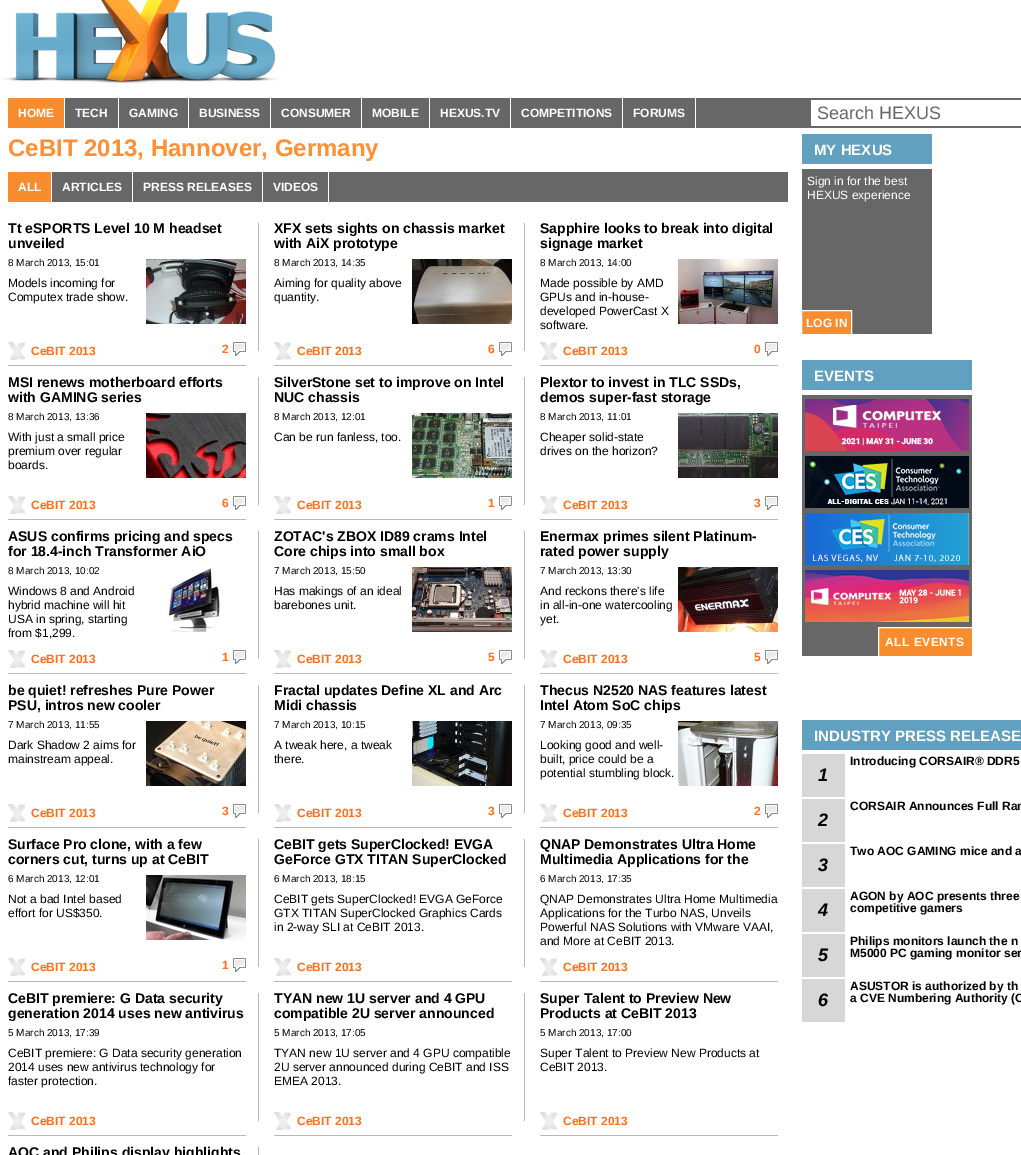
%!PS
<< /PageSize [1021 1155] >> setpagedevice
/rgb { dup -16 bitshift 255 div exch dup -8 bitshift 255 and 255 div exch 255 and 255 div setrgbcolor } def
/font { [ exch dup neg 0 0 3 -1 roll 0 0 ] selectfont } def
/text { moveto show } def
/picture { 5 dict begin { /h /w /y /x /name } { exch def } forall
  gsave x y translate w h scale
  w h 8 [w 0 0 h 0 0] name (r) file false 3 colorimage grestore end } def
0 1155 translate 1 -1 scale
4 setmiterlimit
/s1 { /LiberationSans-Bold 12 font 16#FFFFFF rgb } def
/s2 { /LiberationSans-Regular 18 font 16#676767 rgb } def
/s3 { /LiberationSans-Bold 24 font 16#FF8F35 rgb } def
/s4 { /LiberationSans-Bold 14 font 16#000000 rgb } def
/s5 { /LiberationSans-Regular 10 font 16#000000 rgb } def
/s6 { /LiberationSans-Regular 12 font 16#000000 rgb } def
/s7 { /LiberationSans-Bold 12 font 16#FD6F1B rgb } def
/s8 { /LiberationSans-Bold 15 font 16#FFFFFF rgb } def
/s9 { /LiberationSans-Regular 12 font 16#FFFFFF rgb } def
/s10 { /LiberationSans-Bold 12 font 16#000000 rgb } def
/s11 { /LiberationSans-BoldItalic 18 font 16#000000 rgb } def
16#FFFFFF rgb
0 0 1021 1155 rectfill
(pic1.raw) 2 0 276 84 picture
16#676767 rgb
65 98 956 30 rectfill
16#F88D2F rgb
8 98 56 30 rectfill
s1
(HOME) 18 117 text
(TECH) 75 117 text
118 98 1 30 rectfill
(GAMING) 129 117 text
188 98 1 30 rectfill
(BUSINESS) 199 117 text
270 98 1 30 rectfill
(CONSUMER) 281 117 text
361 98 1 30 rectfill
(MOBILE) 372 117 text
429 98 1 30 rectfill
(HEXUS.TV) 440 117 text
510 98 1 30 rectfill
(COMPETITIONS) 521 117 text
622 98 1 30 rectfill
(FORUMS) 633 117 text
695 98 1 30 rectfill
811 100 210 26 rectfill
s2
(Search HEXUS) 817 119 text
s3
(CeBIT 2013, Hannover, Germany) 8 156 text
16#676767 rgb
52 172 736 30 rectfill
16#F88D2F rgb
8 172 43 30 rectfill
s1
(ALL) 18 191 text
(ARTICLES) 62 191 text
132 172 1 30 rectfill
(PRESS RELEASES) 143 191 text
262 172 1 30 rectfill
(VIDEOS) 273 191 text
328 172 1 30 rectfill
s4
(Tt eSPORTS Level 10 M headset) 8 233 text
(unveiled) 8 248 text
s5
(8 March 2013, 15:01) 8 266 text
(pic2.raw) 146 259 100 65 picture
s6
(Models incoming for) 8 287 text
(Computex trade show.) 8 301 text
(pic3.raw) 8 342 17 18 picture
s7
(CeBIT 2013) 31 355 text
(pic4.raw) 233 342 13 14 picture
(2) 222 353 text
16#B8B8B8 rgb
258 223 1 128 rectfill
8 365 238 1 rectfill
s4
(XFX sets sights on chassis market) 274 233 text
(with AiX prototype) 274 248 text
s5
(8 March 2013, 14:35) 274 266 text
(pic5.raw) 412 259 100 65 picture
s6
(Aiming for quality above) 274 287 text
(quantity.) 274 301 text
(pic3.raw) 274 342 17 18 picture
s7
(CeBIT 2013) 297 355 text
(pic4.raw) 499 342 13 14 picture
(6) 488 353 text
16#B8B8B8 rgb
524 223 1 128 rectfill
274 365 238 1 rectfill
s4
(Sapphire looks to break into digital) 540 233 text
(signage market) 540 248 text
s5
(8 March 2013, 14:00) 540 266 text
(pic6.raw) 678 259 100 65 picture
s6
(Made possible by AMD) 540 287 text
(GPUs and in-house-) 540 301 text
(developed PowerCast X) 540 315 text
(software.) 540 329 text
(pic3.raw) 540 342 17 18 picture
s7
(CeBIT 2013) 563 355 text
(pic4.raw) 765 342 13 14 picture
(0) 754 353 text
16#B8B8B8 rgb
540 365 238 1 rectfill
s4
(MSI renews motherboard efforts) 8 387 text
(with GAMING series) 8 402 text
s5
(8 March 2013, 13:36) 8 420 text
(pic7.raw) 146 413 100 65 picture
s6
(With just a small price) 8 441 text
(premium over regular) 8 455 text
(boards.) 8 469 text
(pic3.raw) 8 496 17 18 picture
s7
(CeBIT 2013) 31 509 text
(pic4.raw) 233 496 13 14 picture
(6) 222 507 text
16#B8B8B8 rgb
258 377 1 128 rectfill
8 519 238 1 rectfill
s4
(SilverStone set to improve on Intel) 274 387 text
(NUC chassis) 274 402 text
s5
(8 March 2013, 12:01) 274 420 text
(pic8.raw) 412 413 100 65 picture
s6
(Can be run fanless, too.) 274 441 text
(pic3.raw) 274 496 17 18 picture
s7
(CeBIT 2013) 297 509 text
(pic4.raw) 499 496 13 14 picture
(1) 488 507 text
16#B8B8B8 rgb
524 377 1 128 rectfill
274 519 238 1 rectfill
s4
(Plextor to invest in TLC SSDs,) 540 387 text
(demos super-fast storage) 540 402 text
s5
(8 March 2013, 11:01) 540 420 text
(pic9.raw) 678 413 100 65 picture
s6
(Cheaper solid-state) 540 441 text
(drives on the horizon?) 540 455 text
(pic3.raw) 540 496 17 18 picture
s7
(CeBIT 2013) 563 509 text
(pic4.raw) 765 496 13 14 picture
(3) 754 507 text
16#B8B8B8 rgb
540 519 238 1 rectfill
s4
(ASUS confirms pricing and specs) 8 541 text
(for 18.4-inch Transformer AiO) 8 556 text
s5
(8 March 2013, 10:02) 8 574 text
(pic10.raw) 167 568 53 64 picture
s6
(Windows 8 and Android) 8 595 text
(hybrid machine will hit) 8 609 text
(USA in spring, starting) 8 623 text
(from $1,299.) 8 637 text
(pic3.raw) 8 650 17 18 picture
s7
(CeBIT 2013) 31 663 text
(pic4.raw) 233 650 13 14 picture
(1) 222 661 text
16#B8B8B8 rgb
258 531 1 128 rectfill
8 673 238 1 rectfill
s4
(ZOTAC's ZBOX ID89 crams Intel) 274 541 text
(Core chips into small box) 274 556 text
s5
(7 March 2013, 15:50) 274 574 text
(pic11.raw) 412 567 100 65 picture
s6
(Has makings of an ideal) 274 595 text
(barebones unit.) 274 609 text
(pic3.raw) 274 650 17 18 picture
s7
(CeBIT 2013) 297 663 text
(pic4.raw) 499 650 13 14 picture
(5) 488 661 text
16#B8B8B8 rgb
524 531 1 128 rectfill
274 673 238 1 rectfill
s4
(Enermax primes silent Platinum-) 540 541 text
(rated power supply) 540 556 text
s5
(7 March 2013, 13:30) 540 574 text
(pic12.raw) 678 567 100 65 picture
s6
(And reckons there's life) 540 595 text
(in all-in-one watercooling) 540 609 text
(yet.) 540 623 text
(pic3.raw) 540 650 17 18 picture
s7
(CeBIT 2013) 563 663 text
(pic4.raw) 765 650 13 14 picture
(5) 754 661 text
16#B8B8B8 rgb
540 673 238 1 rectfill
s4
(be quiet! refreshes Pure Power) 8 695 text
(PSU, intros new cooler) 8 710 text
s5
(7 March 2013, 11:55) 8 728 text
(pic13.raw) 146 721 100 65 picture
s6
(Dark Shadow 2 aims for) 8 749 text
(mainstream appeal.) 8 763 text
(pic3.raw) 8 804 17 18 picture
s7
(CeBIT 2013) 31 817 text
(pic4.raw) 233 804 13 14 picture
(3) 222 815 text
16#B8B8B8 rgb
258 685 1 128 rectfill
8 827 238 1 rectfill
s4
(Fractal updates Define XL and Arc) 274 695 text
(Midi chassis) 274 710 text
s5
(7 March 2013, 10:15) 274 728 text
(pic14.raw) 412 721 100 65 picture
s6
(A tweak here, a tweak) 274 749 text
(there.) 274 763 text
(pic3.raw) 274 804 17 18 picture
s7
(CeBIT 2013) 297 817 text
(pic4.raw) 499 804 13 14 picture
(3) 488 815 text
16#B8B8B8 rgb
524 685 1 128 rectfill
274 827 238 1 rectfill
s4
(Thecus N2520 NAS features latest) 540 695 text
(Intel Atom SoC chips) 540 710 text
s5
(7 March 2013, 09:35) 540 728 text
(pic15.raw) 678 721 100 65 picture
s6
(Looking good and well-) 540 749 text
(built, price could be a) 540 763 text
(potential stumbling block.) 540 777 text
(pic3.raw) 540 804 17 18 picture
s7
(CeBIT 2013) 563 817 text
(pic4.raw) 765 804 13 14 picture
(2) 754 815 text
16#B8B8B8 rgb
540 827 238 1 rectfill
s4
(Surface Pro clone, with a few) 8 849 text
(corners cut, turns up at CeBIT) 8 864 text
s5
(6 March 2013, 12:01) 8 882 text
(pic16.raw) 146 875 100 65 picture
s6
(Not a bad Intel based) 8 903 text
(effort for US$350.) 8 917 text
(pic3.raw) 8 958 17 18 picture
s7
(CeBIT 2013) 31 971 text
(pic4.raw) 233 958 13 14 picture
(1) 222 969 text
16#B8B8B8 rgb
258 839 1 128 rectfill
8 981 238 1 rectfill
s4
(CeBIT gets SuperClocked! EVGA) 274 849 text
(GeForce GTX TITAN SuperClocked) 274 864 text
s5
(6 March 2013, 18:15) 274 882 text
s6
(CeBIT gets SuperClocked! EVGA GeForce) 274 903 text
(GTX TITAN SuperClocked Graphics Cards) 274 917 text
(in 2-way SLI at CeBIT 2013.) 274 931 text
(pic3.raw) 274 958 17 18 picture
s7
(CeBIT 2013) 297 971 text
16#B8B8B8 rgb
524 839 1 128 rectfill
274 981 238 1 rectfill
s4
(QNAP Demonstrates Ultra Home) 540 849 text
(Multimedia Applications for the) 540 864 text
s5
(6 March 2013, 17:35) 540 882 text
s6
(QNAP Demonstrates Ultra Home Multimedia) 540 903 text
(Applications for the Turbo NAS, Unveils) 540 917 text
(Powerful NAS Solutions with VMware VAAI,) 540 931 text
(and More at CeBIT 2013.) 540 945 text
(pic3.raw) 540 958 17 18 picture
s7
(CeBIT 2013) 563 971 text
16#B8B8B8 rgb
540 981 238 1 rectfill
s4
(CeBIT premiere: G Data security) 8 1003 text
(generation 2014 uses new antivirus) 8 1018 text
s5
(5 March 2013, 17:39) 8 1036 text
s6
(CeBIT premiere: G Data security generation) 8 1057 text
(2014 uses new antivirus technology for) 8 1071 text
(faster protection.) 8 1085 text
(pic3.raw) 8 1112 17 18 picture
s7
(CeBIT 2013) 31 1125 text
16#B8B8B8 rgb
258 993 1 128 rectfill
8 1135 238 1 rectfill
s4
(TYAN new 1U server and 4 GPU) 274 1003 text
(compatible 2U server announced) 274 1018 text
s5
(5 March 2013, 17:05) 274 1036 text
s6
(TYAN new 1U server and 4 GPU compatible) 274 1057 text
(2U server announced during CeBIT and ISS) 274 1071 text
(EMEA 2013.) 274 1085 text
(pic3.raw) 274 1112 17 18 picture
s7
(CeBIT 2013) 297 1125 text
16#B8B8B8 rgb
524 993 1 128 rectfill
274 1135 238 1 rectfill
s4
(Super Talent to Preview New) 540 1003 text
(Products at CeBIT 2013) 540 1018 text
s5
(5 March 2013, 17:00) 540 1036 text
s6
(Super Talent to Preview New Products at) 540 1057 text
(CeBIT 2013.) 540 1071 text
(pic3.raw) 540 1112 17 18 picture
s7
(CeBIT 2013) 563 1125 text
16#B8B8B8 rgb
540 1135 238 1 rectfill
s4
(AOC and Philips display highlights) 8 1157 text
16#B8B8B8 rgb
258 1147 1 8 rectfill
16#61A0BF rgb
802 134 130 30 rectfill
s8
(MY HEXUS) 814 155 text
16#676767 rgb
802 169 130 165 rectfill
s9
(Sign in for the best) 807 185 text
(HEXUS experience) 807 199 text
16#F88D2F rgb
801.5 310.5 moveto 851.5 310.5 lineto 851.5 334.5 lineto 801.5 334.5 lineto closepath gsave fill grestore
16#FFFFFF rgb
stroke
s1
(LOG IN) 806 327 text
16#61A0BF rgb
802 360 170 30 rectfill
s8
(EVENTS) 814 381 text
16#676767 rgb
802 395 170 261 rectfill
(pic17.raw) 805 399 164 52 picture
(pic18.raw) 805 456 164 52 picture
(pic19.raw) 805 513 164 52 picture
(pic20.raw) 805 570 164 52 picture
16#F88D2F rgb
879 628 93 28 rectfill
gsave
802 360 170 296 rectclip
16#FFFFFF rgb
878.5 627.5 94 29 rectstroke
grestore
/LiberationSans-Bold 12 font
16#FFFFFF rgb
885 646 moveto 0.5 0 (ALL EVENTS) ashow
16#61A0BF rgb
802 720 219 30 rectfill
s8
(INDUSTRY PRESS RELEASE) 814 741 text
s10
(Introducing CORSAIR® DDR5) 850 765 text
16#D7D7D7 rgb
802 754 43 43 rectfill
s11
(1) 818 781 text
s10
(CORSAIR Announces Full Ran) 850 810 text
16#D7D7D7 rgb
802 799 43 43 rectfill
s11
(2) 818 826 text
s10
(Two AOC GAMING mice and a) 850 855 text
16#D7D7D7 rgb
802 844 43 43 rectfill
s11
(3) 818 871 text
16#D7D7D7 rgb
802 889 43 43 rectfill
s11
(4) 818 916 text
s10
(AGON by AOC presents three) 850 900 text
(competitive gamers) 850 912 text
16#D7D7D7 rgb
802 934 43 43 rectfill
s11
(5) 818 961 text
s10
(Philips monitors launch the n) 850 945 text
(M5000 PC gaming monitor ser) 850 957 text
16#D7D7D7 rgb
802 979 43 43 rectfill
s11
(6) 818 1006 text
s10
(ASUSTOR is authorized by th) 850 990 text
(a CVE Numbering Authority \(C) 850 1002 text
showpage
